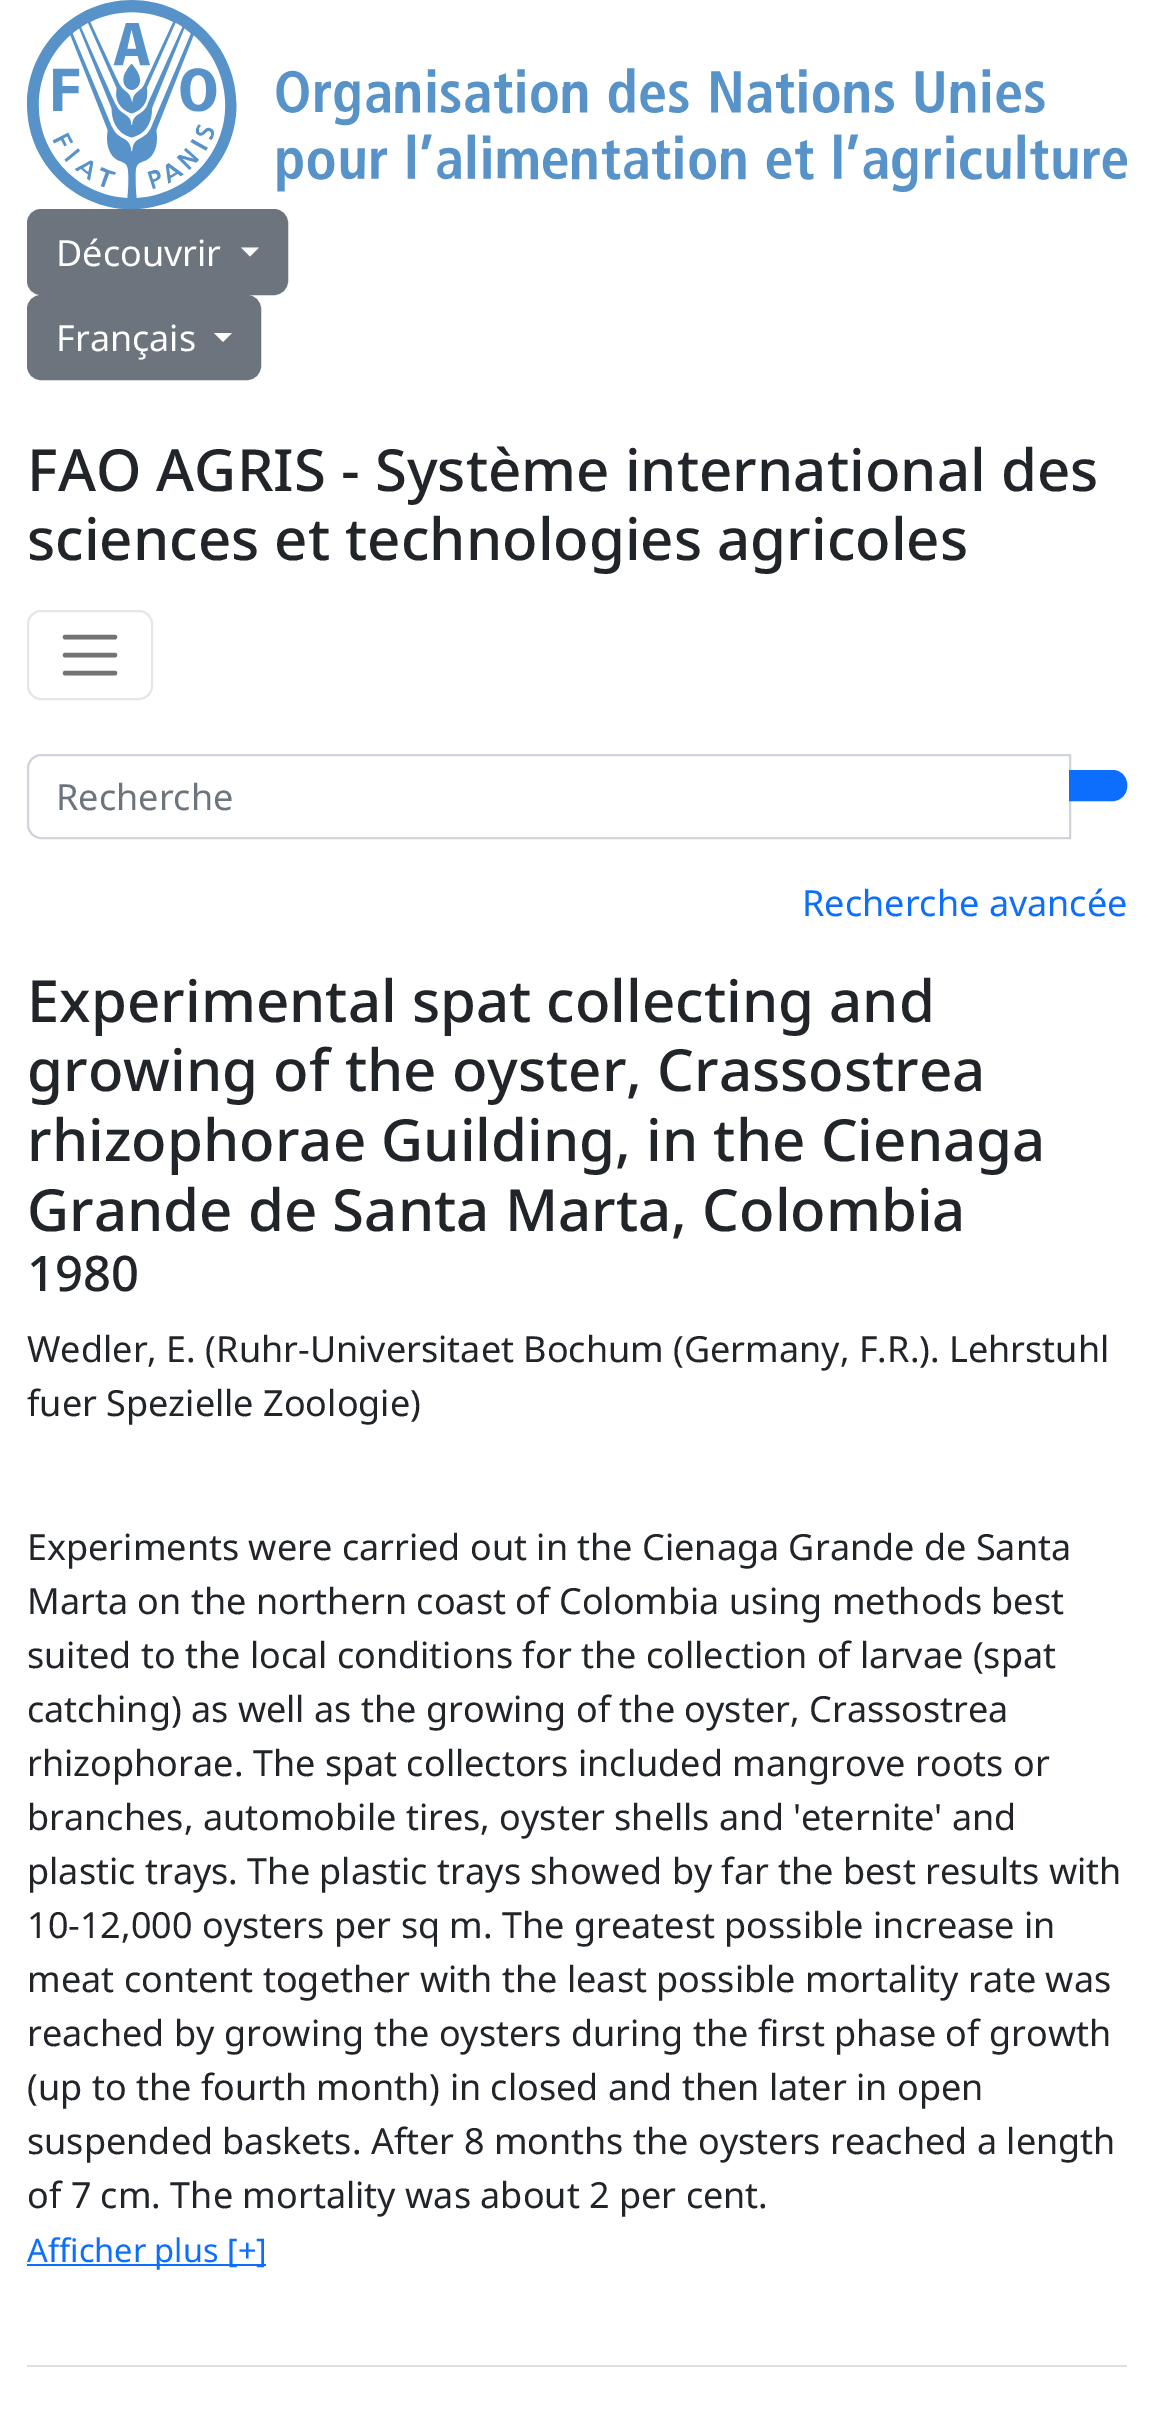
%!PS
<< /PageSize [1153 2418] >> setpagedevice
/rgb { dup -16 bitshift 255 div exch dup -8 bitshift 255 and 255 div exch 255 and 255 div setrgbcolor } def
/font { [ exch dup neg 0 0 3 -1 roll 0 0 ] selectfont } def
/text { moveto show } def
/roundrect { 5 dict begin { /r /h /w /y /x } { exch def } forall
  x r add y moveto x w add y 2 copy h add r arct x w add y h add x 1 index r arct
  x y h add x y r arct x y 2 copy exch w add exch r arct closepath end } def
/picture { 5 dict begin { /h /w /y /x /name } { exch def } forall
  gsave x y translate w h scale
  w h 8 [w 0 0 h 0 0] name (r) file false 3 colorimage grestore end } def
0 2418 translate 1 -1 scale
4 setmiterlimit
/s1 { /NotoSans-Regular 36 font 16#FFFFFF rgb } def
/s2 { /NotoSans-Medium 58.1 font 16#212529 rgb } def
/s3 { /NotoSans-Regular 36 font 16#6C757D rgb } def
/s4 { /NotoSans-Regular 36 font 16#0D6EFD rgb } def
/s5 { /NotoSans-Medium 49 font 16#212529 rgb } def
/s6 { /NotoSans-Regular 36 font 16#212529 rgb } def
/s7 { /NotoSans-Regular 32.5 font 16#0D6EFD rgb } def
16#FFFFFF rgb
0 0 1153 2418 rectfill
(pic1.raw) 27 0 1100 209 picture
16#6C757D rgb
28 210 259 84 13 roundrect gsave fill grestore
2 setlinewidth
stroke
s1
(Découvrir) 56 266 text
241 247.5 moveto 259 247.5 lineto 250 256.5 lineto closepath fill
16#6C757D rgb
28 296 232 83 13 roundrect gsave fill grestore
stroke
s1
(Français) 56 351 text
214 333 moveto 232 333 lineto 223 342 lineto closepath fill
s2
(FAO AGRIS - Système international des) 27 491 text
(sciences et technologies agricoles) 27 560 text
16#E6E6E6 rgb
28 611 124 88 13 roundrect stroke
16#737373 rgb
4.5 setlinewidth
1 setlinecap
65 637 moveto 115 637 lineto 65 655 moveto 115 655 lineto 65 673 moveto 115 673 lineto stroke
16#CED4DA rgb
2 setlinewidth
0 setlinecap
41 755 moveto 1070 755 lineto 1070 838 lineto 41 838 lineto 34 838 28 832 28 825 curveto 28 768 lineto 28 761 34 755 41 755 curveto closepath stroke
s3
(Recherche) 56 810 text
16#0D6EFD rgb
1070 771 moveto 1113 771 lineto 1120 771 1126 777 1126 784 curveto 1126 787 lineto 1126 794 1120 800 1113 800 curveto 1070 800 lineto closepath gsave fill grestore
stroke
(Recherche avancée) 802 916 text
s2
(Experimental spat collecting and) 27 1022 text
(growing of the oyster, Crassostrea) 27 1091 text
(rhizophorae Guilding, in the Cienaga) 27 1161 text
(Grande de Santa Marta, Colombia) 27 1231 text
s5
(1980) 27 1291 text
s6
(Wedler, E. \(Ruhr-Universitaet Bochum \(Germany, F.R.\). Lehrstuhl) 27 1362 text
(fuer Spezielle Zoologie\)) 27 1416 text
(Experiments were carried out in the Cienaga Grande de Santa) 27 1560 text
(Marta on the northern coast of Colombia using methods best) 27 1614 text
(suited to the local conditions for the collection of larvae \(spat) 27 1668 text
(catching\) as well as the growing of the oyster, Crassostrea) 27 1722 text
(rhizophorae. The spat collectors included mangrove roots or) 27 1776 text
(branches, automobile tires, oyster shells and 'eternite' and) 27 1830 text
(plastic trays. The plastic trays showed by far the best results with) 27 1884 text
(10-12,000 oysters per sq m. The greatest possible increase in) 27 1938 text
(meat content together with the least possible mortality rate was) 27 1992 text
(reached by growing the oysters during the first phase of growth) 27 2046 text
(\(up to the fourth month\) in closed and then later in open) 27 2100 text
(suspended baskets. After 8 months the oysters reached a length) 27 2154 text
(of 7 cm. The mortality was about 2 per cent.) 27 2208 text
16#0D6EFD rgb
27 2264 239 2 rectfill
s7
(Afficher plus [+]) 27 2262 text
16#DFDFDF rgb
27 2365 1100 2 rectfill
showpage
